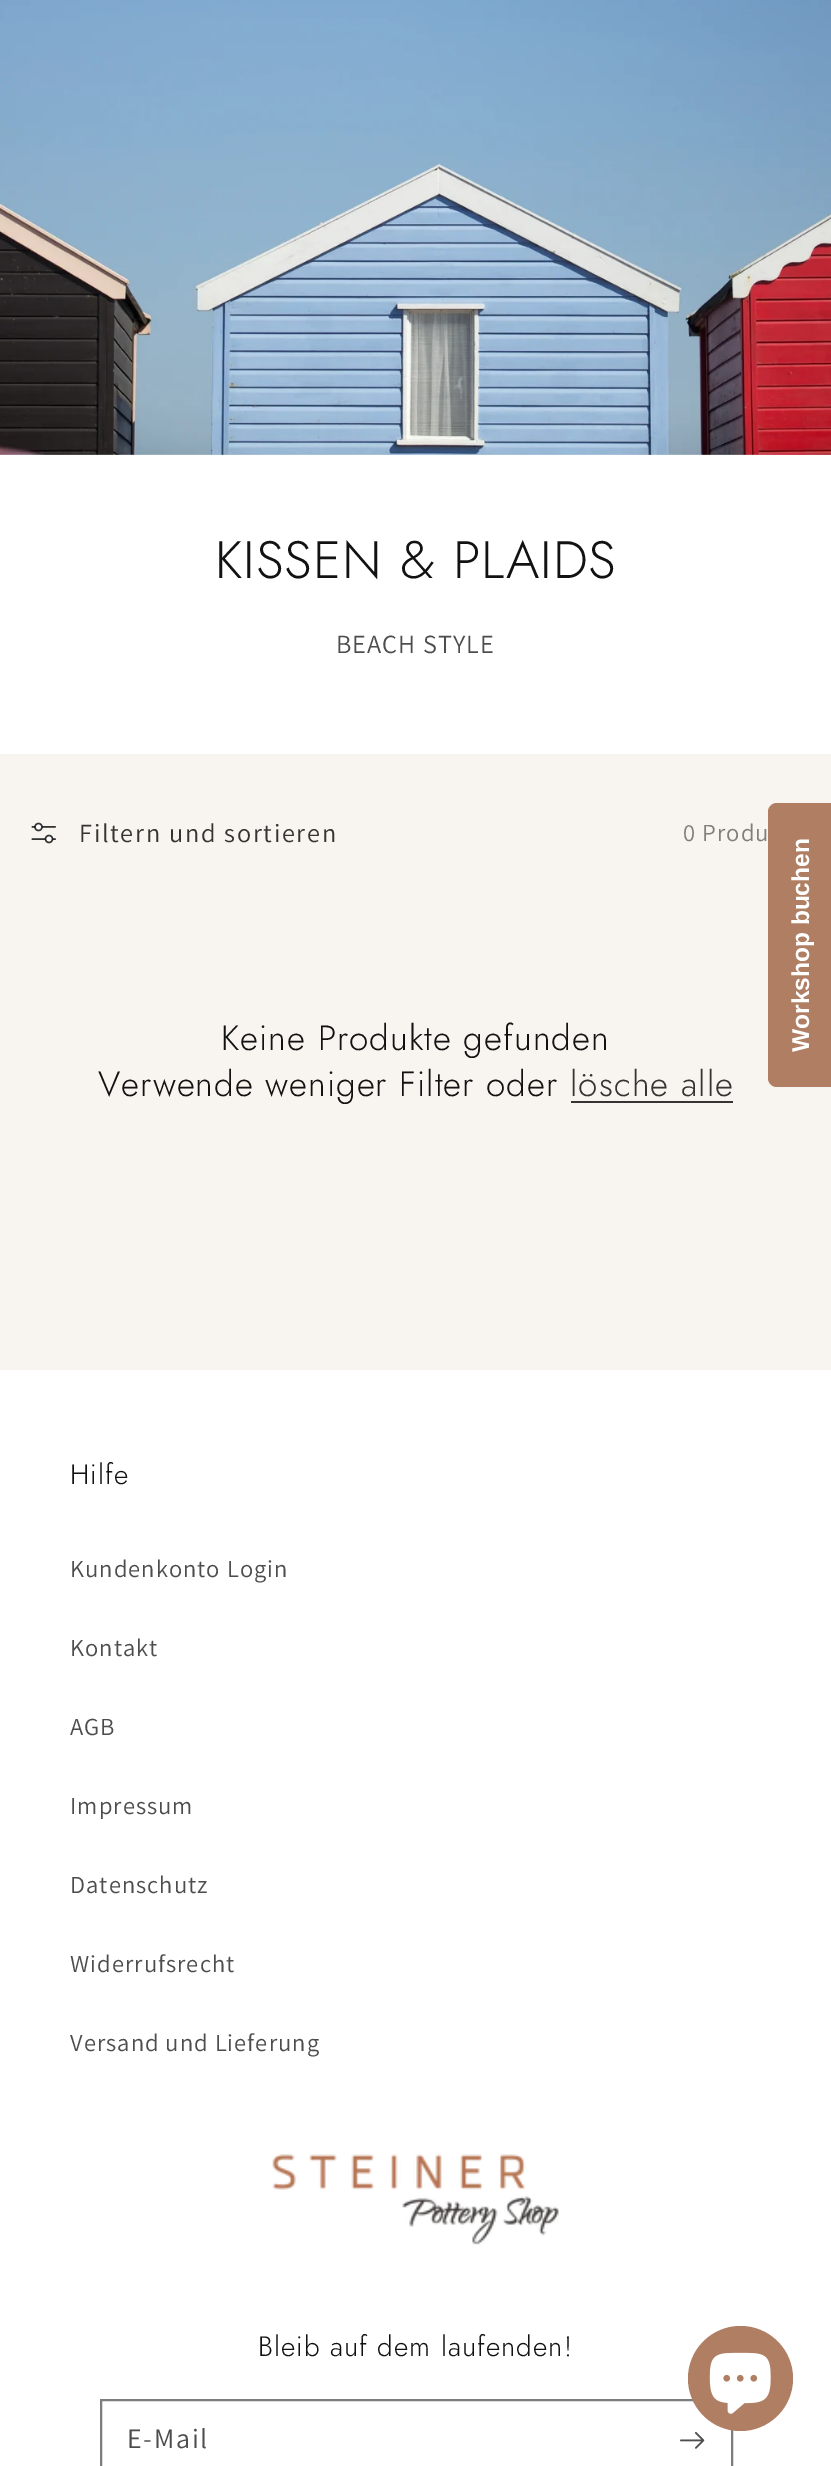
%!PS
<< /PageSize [831 2466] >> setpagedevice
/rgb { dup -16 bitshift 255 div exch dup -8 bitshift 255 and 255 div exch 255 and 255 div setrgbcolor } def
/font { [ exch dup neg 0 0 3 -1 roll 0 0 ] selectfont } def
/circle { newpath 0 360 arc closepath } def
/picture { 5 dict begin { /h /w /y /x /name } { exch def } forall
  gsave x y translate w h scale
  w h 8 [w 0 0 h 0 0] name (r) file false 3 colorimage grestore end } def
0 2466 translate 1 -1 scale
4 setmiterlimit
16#F8F4EF rgb
0 0 831 2466 rectfill
(pic1.raw) 0 0 831 455 picture
16#FFFFFF rgb
0 455 831 299 rectfill
/Jost-Light 52.5 font
16#121212 rgb
215 578 moveto 1.05 0 (KISSEN & PLAIDS) ashow
/Assistant-ExtraLight 26.25 font
16#4D4D4D rgb
336 653 moveto 1.05 0 (BEACH STYLE) ashow
(pic2.raw) 31 822 25 22 picture
16#353433 rgb
79 842 moveto 1.75 0 (Filtern und sortieren) ashow
/Assistant-ExtraLight 24.5 font
16#7F7E7B rgb
683 841 moveto 1.05 0 (0 Produ) ashow
/Jost-Light 35 font
16#121212 rgb
221 1050 moveto 1.05 0 (Keine Produkte gefunden) ashow
98 1096 moveto 1.05 0 (Verwende weniger Filter oder) ashow
16#353433 rgb
570 1096 moveto 1.05 0 (lösche alle) ashow
571 1101 162 2 rectfill
16#B07F63 rgb
768 1078 moveto 768 812 lineto 768 807 772 803 777 803 curveto 831 803 lineto 831 1087 lineto 777 1087 lineto 772 1087 768 1083 768 1078 curveto closepath fill
/LiberationSans-Bold 24.5 font
16#FFFFFF rgb
gsave 809 1052 translate -90 rotate 0 0 moveto (Workshop buchen) show grestore
0 1370 831 1096 rectfill
/Jost-Light 28 font
16#121212 rgb
70 1484 moveto 1.05 0 (Hilfe) ashow
/Assistant-ExtraLight 24.5 font
16#4D4D4D rgb
70 1577 moveto 1.05 0 (Kundenkonto Login) ashow
70 1656 moveto 1.05 0 (Kontakt) ashow
70 1735 moveto 1.05 0 (AGB) ashow
70 1814 moveto 1.05 0 (Impressum) ashow
70 1893 moveto 1.05 0 (Datenschutz) ashow
70 1972 moveto 1.05 0 (Widerrufsrecht) ashow
70 2051 moveto 1.05 0 (Versand und Lieferung) ashow
(pic3.raw) 272 2154 287 91 picture
/Jost-Light 28 font
16#121212 rgb
258 2356 moveto 1.05 0 (Bleib auf dem laufenden!) ashow
16#7D7D7D rgb
2 setlinewidth
101 2400 631 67 rectstroke
/Assistant-ExtraLight 28 font
16#4D4D4D rgb
127 2448 moveto 1.75 0 (E-Mail) ashow
(pic4.raw) 680 2432 25 17 picture
16#B07F63 rgb
740.5 2378.5 52.5 circle fill
(pic5.raw) 709 2352 62 62 picture
showpage
